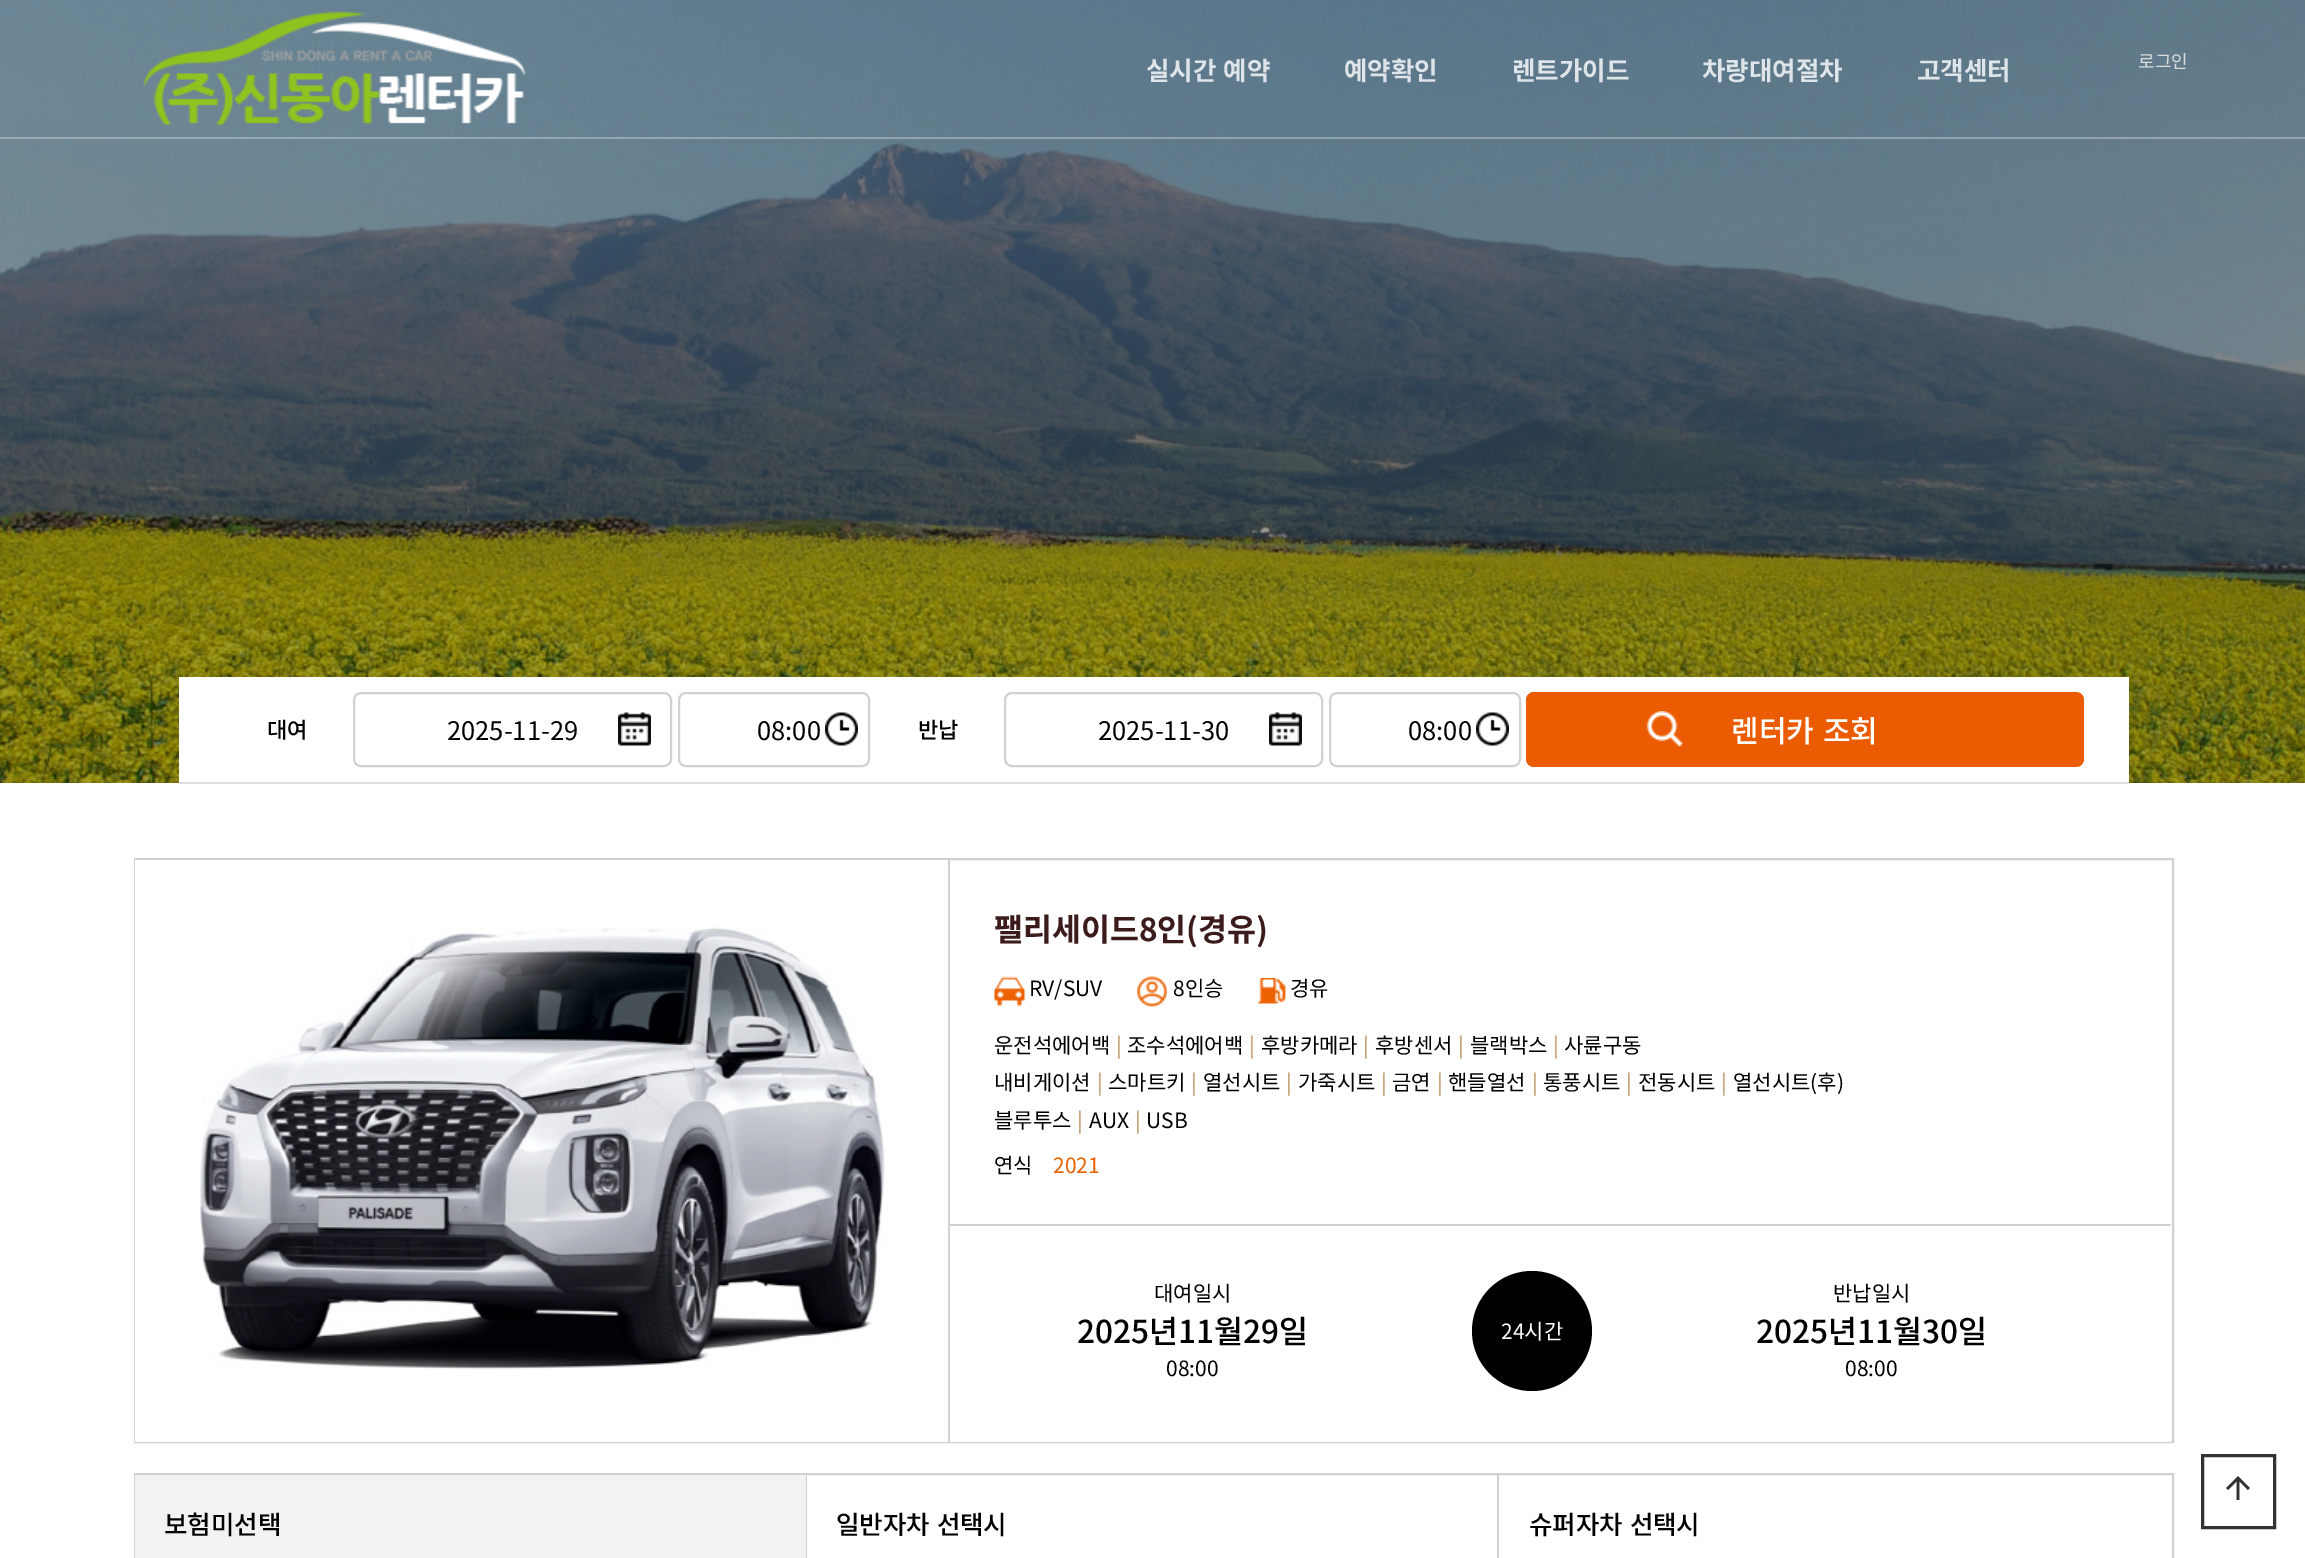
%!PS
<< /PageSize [2305 1558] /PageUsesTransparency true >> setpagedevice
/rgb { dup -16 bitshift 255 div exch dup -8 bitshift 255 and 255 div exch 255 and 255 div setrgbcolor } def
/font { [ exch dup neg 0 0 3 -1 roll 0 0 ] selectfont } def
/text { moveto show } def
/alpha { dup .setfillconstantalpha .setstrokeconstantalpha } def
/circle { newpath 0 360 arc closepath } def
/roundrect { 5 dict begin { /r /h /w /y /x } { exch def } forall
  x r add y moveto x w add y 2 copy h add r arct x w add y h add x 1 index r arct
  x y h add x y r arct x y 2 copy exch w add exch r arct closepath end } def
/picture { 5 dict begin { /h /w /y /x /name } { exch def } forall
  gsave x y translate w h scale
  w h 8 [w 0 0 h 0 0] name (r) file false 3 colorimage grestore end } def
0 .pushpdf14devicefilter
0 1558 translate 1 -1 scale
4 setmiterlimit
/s1 { /NotoSansKR-Bold 25.5 font 16#DFE4E8 rgb } def
/s2 { /NotoSansKR-Regular 18 font 16#DDDDDD rgb } def
/s3 { /NotoSansKR-Medium 22 font 16#000000 rgb } def
/s4 { /NotoSansKR-Regular 25.5 font 16#000000 rgb } def
/s5 { /NotoSansKR-Bold 31.5 font 16#3B1B1C rgb } def
/s6 { /NotoSansKR-Regular 21 font 16#000000 rgb } def
/s7 { /NotoSansKR-Regular 21 font 16#B28850 rgb } def
/s8 { /NotoSansKR-Regular 21 font 16#EB6100 rgb } def
/s9 { /NotoSansKR-Medium 31.5 font 16#000000 rgb } def
/s10 { /NotoSansKR-Regular 21 font 16#FFFFFF rgb } def
/s11 { /NotoSansKR-Medium 25.5 font 16#000000 rgb } def
16#FFFFFF rgb
0 0 2305 1558 rectfill
(pic1.raw) 0 0 2305 783 picture
0.3 alpha
0 137 2305 2 rectfill
1 alpha
(pic2.raw) 143 11 383 114 picture
/NotoSansKR-Bold 25.5 font
16#DFE4E8 rgb
1146 80 moveto 1 0 32 (실시간 예약) widthshow
(예약확인) 1344 80 text
(렌트가이드) 1512 80 text
(차량대여절차) 1702 80 text
(고객센터) 1917 80 text
s2
(로그인) 2138 68 text
16#FFFFFF rgb
179 677 1950 105 rectfill
16#DDDDDD rgb
179 782 1950 2 rectfill
s3
(대여) 267 738 text
(pic3.raw) 618 712 33 34 picture
16#D1D1D1 rgb
2 setlinewidth
354 693 317 73 7 roundrect stroke
s4
(2025-11-29) 447 740 text
(pic4.raw) 825 712 33 34 picture
16#D1D1D1 rgb
679 693 190 73 7 roundrect stroke
s4
(08:00) 757 740 text
s3
(반납) 918 738 text
(pic5.raw) 1269 712 33 34 picture
16#D1D1D1 rgb
1005 693 317 73 7 roundrect stroke
s4
(2025-11-30) 1098 740 text
(pic4.raw) 1476 712 33 34 picture
16#D1D1D1 rgb
1330 693 190 73 7 roundrect stroke
s4
(08:00) 1408 740 text
16#EB5C02 rgb
1526 692 558 75 8 roundrect fill
(pic6.raw) 1646 711 37 36 picture
/NotoSansKR-Medium 30 font
16#FFFFFF rgb
1731 742 moveto 2 0 32 (렌터카 조회) widthshow
16#D1D1D1 rgb
135 859 2038 583 rectstroke
16#FFFFFF rgb
135 860 813 582 rectfill
16#D1D1D1 rgb
948 860 2 582 rectfill
(pic7.raw) 200 916 685 454 picture
16#FFFFFF rgb
950 1441 1221 1 rectfill
s5
(팰리세이드8인\(경유\)) 994 941 text
(pic8.raw) 994 976 31 31 picture
s6
(RV/SUV) 1029 996 text
(pic9.raw) 1137 976 30 31 picture
(8인승) 1173 996 text
(pic10.raw) 1258 978 28 26 picture
(경유) 1290 996 text
(운전석에어백) 994 1053 text
s7
(|) 1116 1053 text
s6
(조수석에어백) 1127 1053 text
s7
(|) 1249 1053 text
s6
(후방카메라) 1261 1053 text
s7
(|) 1363 1053 text
s6
(후방센서) 1375 1053 text
s7
(|) 1458 1053 text
s6
(블랙박스) 1470 1053 text
s7
(|) 1553 1053 text
s6
(사륜구동) 1564 1053 text
(내비게이션) 994 1090 text
s7
(|) 1097 1090 text
s6
(스마트키) 1108 1090 text
s7
(|) 1191 1090 text
s6
(열선시트) 1203 1090 text
s7
(|) 1286 1090 text
s6
(가죽시트) 1298 1090 text
s7
(|) 1381 1090 text
s6
(금연) 1392 1090 text
s7
(|) 1437 1090 text
s6
(핸들열선) 1448 1090 text
s7
(|) 1532 1090 text
s6
(통풍시트) 1543 1090 text
s7
(|) 1626 1090 text
s6
(전동시트) 1638 1090 text
s7
(|) 1721 1090 text
s6
(열선시트\(후\)) 1733 1090 text
(블루투스) 994 1128 text
s7
(|) 1077 1128 text
s6
(AUX) 1089 1128 text
s7
(|) 1135 1128 text
s6
(USB) 1146 1128 text
(연식) 994 1173 text
s8
(2021) 1053 1173 text
16#D1D1D1 rgb
950 1224 1221 2 rectfill
s6
(대여일시) 1154 1301 text
s9
(2025년11월29일) 1077 1343 text
s6
(08:00) 1166 1376 text
1532 1331 60 circle fill
s10
(24시간) 1501 1339 text
s6
(반납일시) 1833 1301 text
s9
(2025년11월30일) 1756 1343 text
s6
(08:00) 1845 1376 text
16#D1D1D1 rgb
135 1474 2038 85 rectstroke
16#F2F2F2 rgb
135 1475 671 83 rectfill
16#D1D1D1 rgb
806 1475 1 83 rectfill
s11
(보험미선택) 164 1534 text
16#D1D1D1 rgb
1497 1475 2 83 rectfill
16#000000 rgb
836 1534 moveto 1 0 32 (일반자차 선택시) widthshow
1529 1534 moveto 1 0 32 (슈퍼자차 선택시) widthshow
16#333333 rgb
3 setlinewidth
2202.5 1455.5 72 72 rectstroke
(pic11.raw) 2226 1476 24 24 picture
.poppdf14devicefilter showpage
